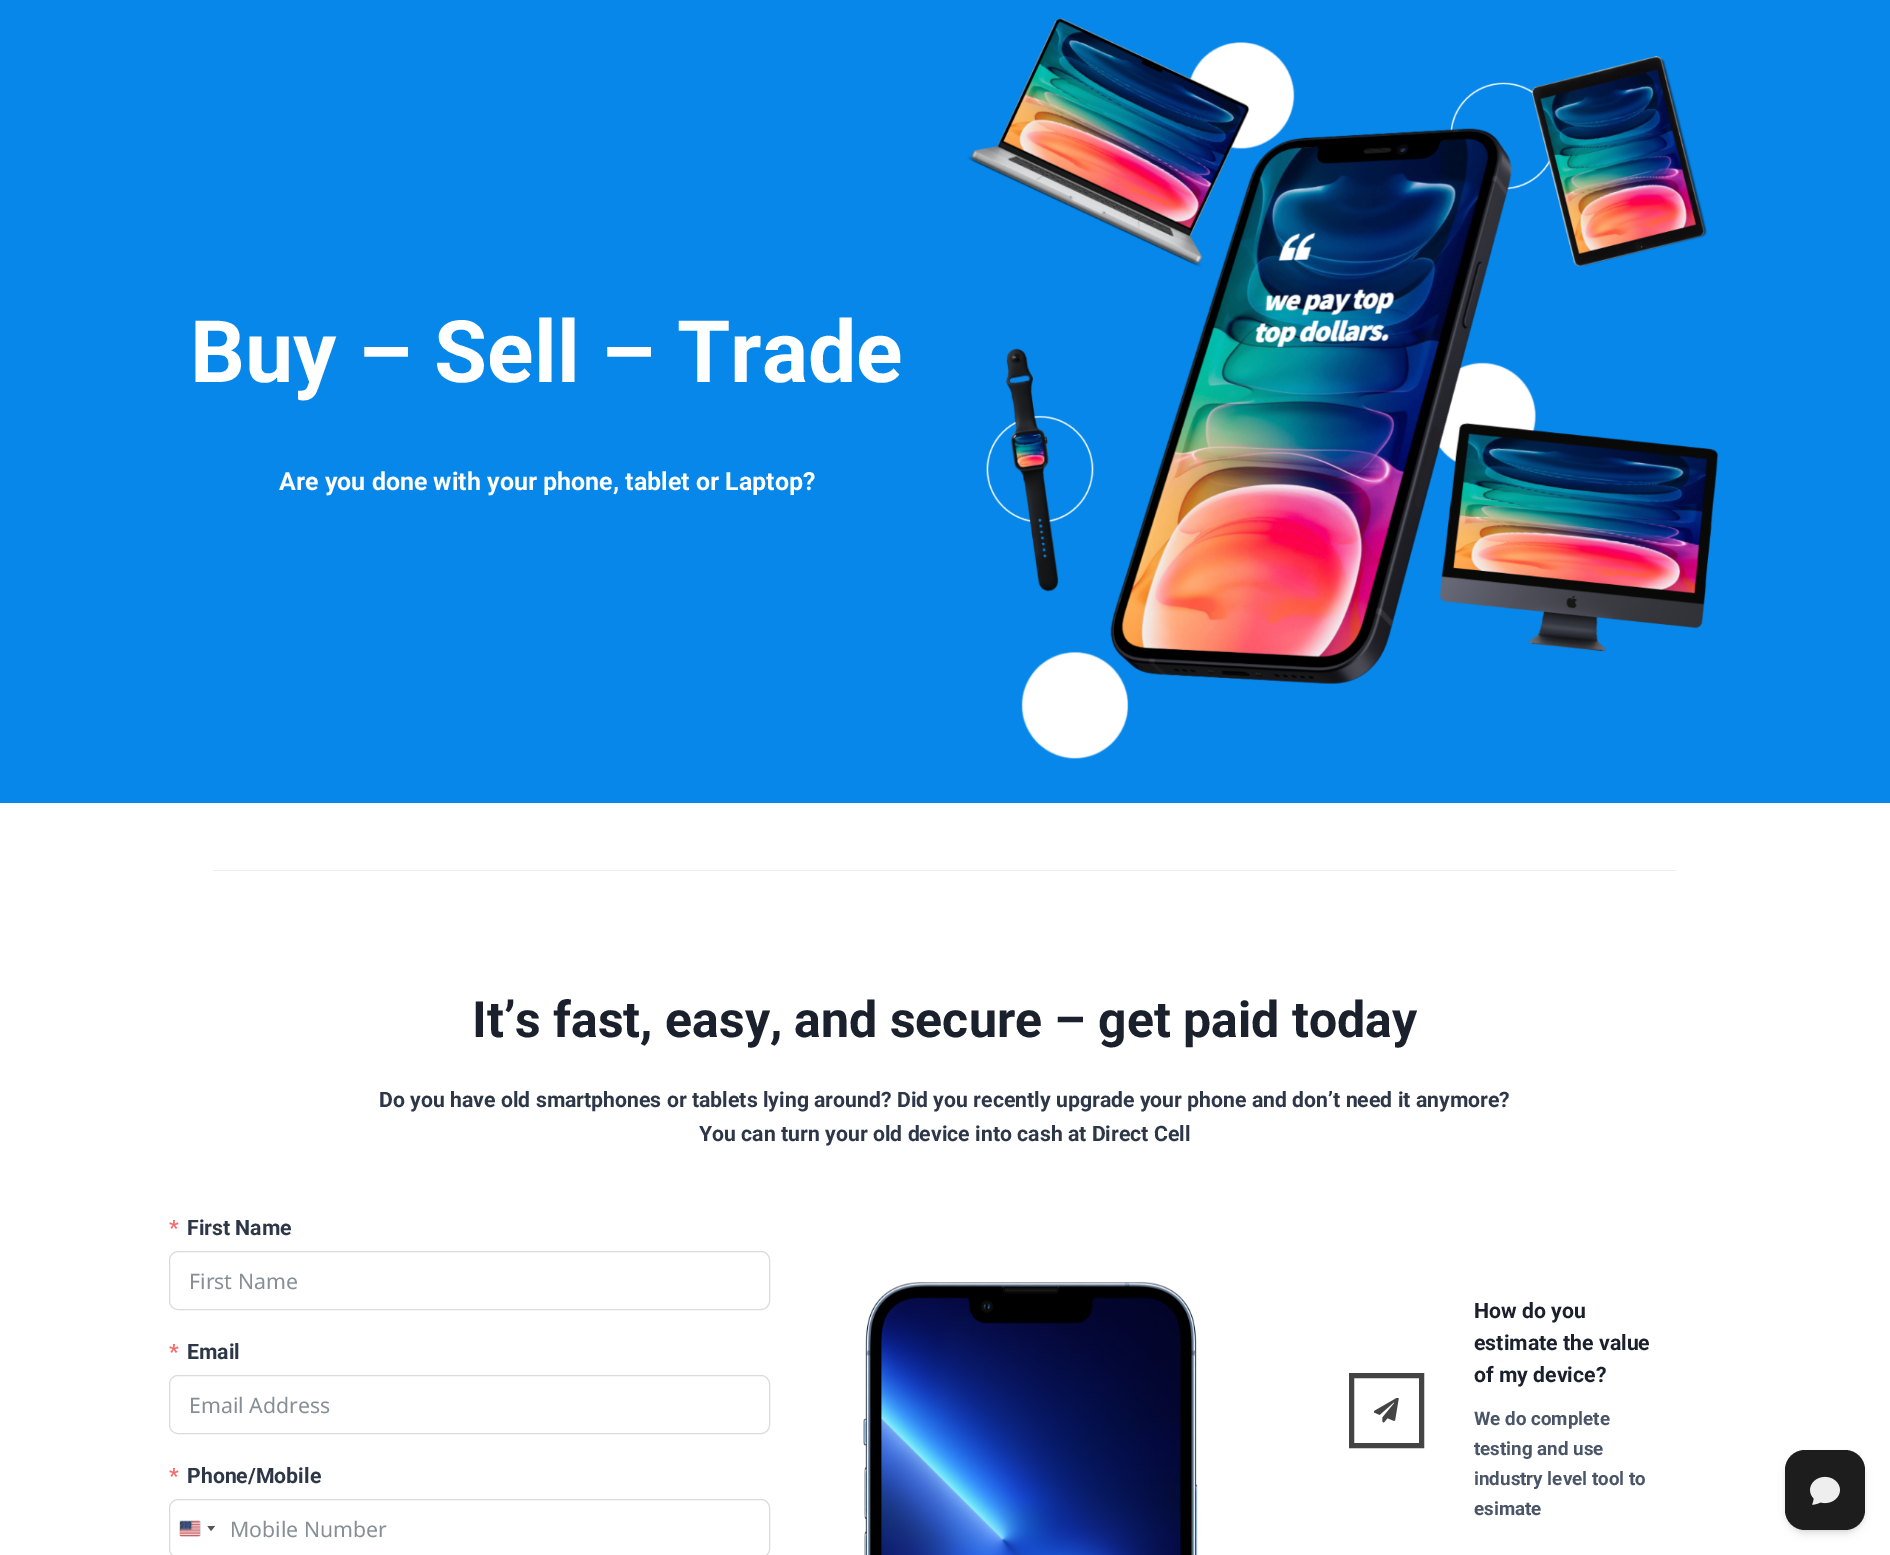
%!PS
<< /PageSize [1890 1555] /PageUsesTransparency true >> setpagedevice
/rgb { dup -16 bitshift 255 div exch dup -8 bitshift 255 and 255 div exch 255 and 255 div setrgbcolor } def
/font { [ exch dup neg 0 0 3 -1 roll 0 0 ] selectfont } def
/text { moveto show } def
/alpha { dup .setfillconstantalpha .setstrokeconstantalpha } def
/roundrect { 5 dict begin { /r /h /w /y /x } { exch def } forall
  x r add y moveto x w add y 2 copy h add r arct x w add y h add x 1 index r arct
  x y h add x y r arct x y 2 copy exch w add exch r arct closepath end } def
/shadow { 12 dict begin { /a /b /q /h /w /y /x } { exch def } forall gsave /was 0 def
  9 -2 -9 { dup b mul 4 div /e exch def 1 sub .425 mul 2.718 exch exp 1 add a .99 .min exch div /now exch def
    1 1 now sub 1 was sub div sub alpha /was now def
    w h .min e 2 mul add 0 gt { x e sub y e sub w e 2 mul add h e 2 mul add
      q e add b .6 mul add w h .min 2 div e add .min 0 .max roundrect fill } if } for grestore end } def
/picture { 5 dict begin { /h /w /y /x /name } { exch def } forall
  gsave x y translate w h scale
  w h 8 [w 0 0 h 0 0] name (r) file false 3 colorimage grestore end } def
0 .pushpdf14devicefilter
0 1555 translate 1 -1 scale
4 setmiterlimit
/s1 { /Roboto-Bold 86.25 font 16#FFFFFF rgb } def
/s2 { /Roboto-Bold 25 font 16#FFFFFF rgb } def
/s3 { /Roboto-Bold 50 font 16#1A202C rgb } def
/s4 { /Roboto-Bold 21.25 font 16#2D3748 rgb } def
/s5 { /Roboto-Bold 21.25 font 16#F56C6C rgb } def
/s6 { /NotoSans-Regular 21.25 font 16#868E96 rgb } def
/s7 { /Roboto-Bold 21.25 font 16#1A202C rgb } def
/s8 { /Roboto-Bold 18.75 font 16#4A5568 rgb } def
16#FFFFFF rgb
0 0 1890 1555 rectfill
16#0787EA rgb
0 0 1890 803 rectfill
s1
(Buy – Sell – Trade) 190 382 text
s2
(Are you done with your phone, tablet or Laptop?) 279 490 text
(pic1.raw) 967 18 752 741 picture
16#EEEEEE rgb
213 870 1463 1 rectfill
s3
(It’s fast, easy, and secure – get paid today) 472 1037 text
s4
(Do you have old smartphones or tablets lying around? Did you recently upgrade your phone and don’t need it anymore?) 379 1107 text
(You can turn your old device into cash at Direct Cell) 699 1141 text
s5
(*) 169 1235 text
s4
(First Name) 187 1235 text
16#DADBDD rgb
169.5 1251.5 600 58 8.5 roundrect stroke
s6
(First Name) 189 1289 text
s5
(*) 169 1359 text
s4
(Email) 187 1359 text
16#DADBDD rgb
169.5 1375.5 600 58 8.5 roundrect stroke
s6
(Email Address) 189 1413 text
s5
(*) 169 1483 text
s4
(Phone/Mobile) 187 1483 text
16#DADBDD rgb
169.5 1499.5 600 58 8.5 roundrect stroke
16#888888 rgb
180 1521 20 15 1 0.5 1 shadow
(pic2.raw) 180 1521 20 16 picture
16#555555 rgb
207.5 1526 moveto 215 1526 lineto 211 1531 lineto closepath fill
s6
(Mobile Number) 230 1537 text
(pic3.raw) 863 1282 335 273 picture
16#444444 rgb
5 setlinewidth
1351.5 1375.5 70 70 rectstroke
(pic4.raw) 1374 1398 25 25 picture
s7
(How do you) 1474 1318 text
(estimate the value) 1474 1350 text
(of my device?) 1474 1382 text
s8
(We do complete) 1474 1425 text
(testing and use) 1474 1455 text
(industry level tool to) 1474 1485 text
(esimate) 1474 1515 text
16#000000 rgb
1788 1455 75 75 18 2.5 0.1 shadow
1786 1456 78 78 19 4 0.1 shadow
16#1D1D1D rgb
1785 1450 80 80 20 roundrect fill
(pic5.raw) 1810 1476 30 29 picture
.poppdf14devicefilter showpage
